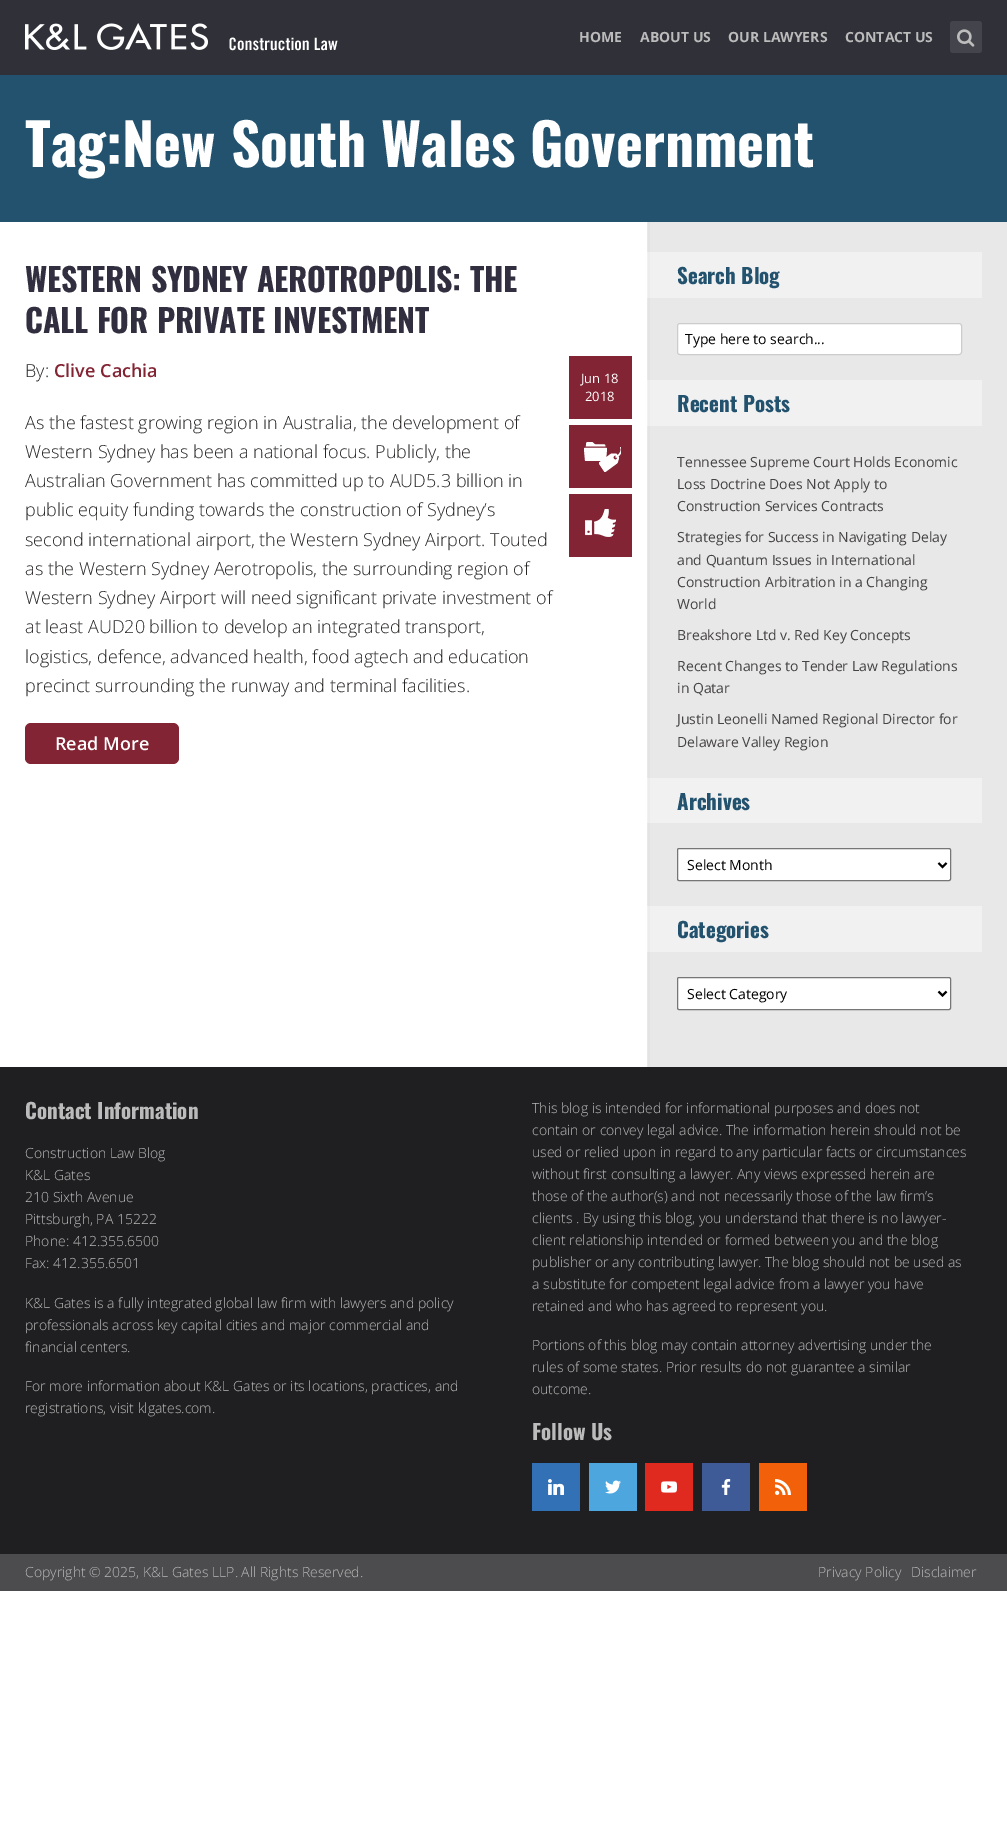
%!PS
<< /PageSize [1007 1829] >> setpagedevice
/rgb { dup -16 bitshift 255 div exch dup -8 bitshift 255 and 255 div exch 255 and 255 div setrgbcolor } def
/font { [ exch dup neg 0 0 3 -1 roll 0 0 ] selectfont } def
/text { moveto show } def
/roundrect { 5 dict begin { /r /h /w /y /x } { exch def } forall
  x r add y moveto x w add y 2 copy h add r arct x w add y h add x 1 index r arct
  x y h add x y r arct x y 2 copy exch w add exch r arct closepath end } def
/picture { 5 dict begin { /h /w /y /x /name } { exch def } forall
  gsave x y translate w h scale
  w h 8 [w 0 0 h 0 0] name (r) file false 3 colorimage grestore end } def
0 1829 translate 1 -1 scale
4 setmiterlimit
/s1 { /OpenSans-Bold 14 font 16#BBBBBB rgb } def
/s2 { /Oswald-Bold 57.6 font 16#FFFFFF rgb } def
/s3 { /OpenSans-Light 18 font 16#282525 rgb } def
/s4 { /OpenSans-SemiBold 18 font 16#822433 rgb } def
/s5 { /OpenSans-SemiBold 18 font 16#FFFFFF rgb } def
/s6 { /OpenSans-Regular 13 font 16#FFFFFF rgb } def
/s7 { /Oswald-Bold 21 font 16#23526E rgb } def
/s8 { /OpenSans-Regular 14 font 16#010101 rgb } def
/s9 { /OpenSans-Regular 14 font 16#454343 rgb } def
/s10 { /Oswald-Bold 21 font 16#BBBBBB rgb } def
/s11 { /OpenSans-Light 14 font 16#BBBBBB rgb } def
16#FFFFFF rgb
0 0 1007 1829 rectfill
16#2F3038 rgb
0 0 1007 75 rectfill
(pic1.raw) 25 23 313 28 picture
s1
(HOME) 579 42 text
(ABOUT US) 640 42 text
(OUR LAWYERS) 728 42 text
(CONTACT US) 845 42 text
16#44454C rgb
950 21 32 32 3 roundrect fill
(pic2.raw) 957 29 18 18 picture
16#23526E rgb
0 75 1007 147 rectfill
s2
(Tag:New South Wales Government) 25 167 text
16#E8E8E8 rgb
647 222 360 845 rectfill
16#E3E3E3 rgb
648 222 2 845 rectfill
/Oswald-Bold 32 font
16#312F3F rgb
25 292 moveto 1 0 32 -0.3 0 (WESTERN SYDNEY AEROTROPOLIS: THE) awidthshow
25 333 moveto 1 0 32 -0.3 0 (CALL FOR PRIVATE INVESTMENT) awidthshow
s3
(By:) 25 377 text
s4
(Clive Cachia) 54 377 text
s3
(As the fastest growing region in Australia, the development of) 25 429 text
(Western Sydney has been a national focus. Publicly, the) 25 458 text
(Australian Government has committed up to AUD5.3 billion in) 25 487 text
(public equity funding towards the construction of Sydney’s) 25 516 text
(second international airport, the Western Sydney Airport. Touted) 25 546 text
(as the Western Sydney Aerotropolis, the surrounding region of) 25 575 text
(Western Sydney Airport will need significant private investment of) 25 604 text
(at least AUD20 billion to develop an integrated transport,) 25 633 text
(logistics, defence, advanced health, food agtech and education) 25 663 text
(precinct surrounding the runway and terminal facilities.) 25 692 text
16#822433 rgb
25 723 154 41 6 roundrect fill
s5
(Read More) 55 750 text
16#822433 rgb
569 356 63 63 rectfill
s6
(Jun 18) 581 383 text
(2018) 585 401 text
16#822433 rgb
569 425 63 63 rectfill
(pic3.raw) 584 442 37 30 picture
569 494 63 63 rectfill
(pic4.raw) 585 509 31 28 picture
16#F1F1F1 rgb
647 252 335 46 rectfill
16#ECECEC rgb
648 252 2 46 rectfill
s7
(Search Blog) 677 284 text
16#FFFFFF rgb
677.5 323.5 284 31 2.5 roundrect gsave fill grestore
16#CCCCCC rgb
stroke
s8
(Type here to search...) 685 344 text
16#F1F1F1 rgb
647 380 335 46 rectfill
16#ECECEC rgb
648 380 2 46 rectfill
s7
(Recent Posts) 677 412 text
s9
(Tennessee Supreme Court Holds Economic) 677 467 text
(Loss Doctrine Does Not Apply to) 677 489 text
(Construction Services Contracts) 677 511 text
(Strategies for Success in Navigating Delay) 677 542 text
(and Quantum Issues in International) 677 565 text
(Construction Arbitration in a Changing) 677 587 text
(World) 677 609 text
(Breakshore Ltd v. Red Key Concepts) 677 640 text
(Recent Changes to Tender Law Regulations) 677 671 text
(in Qatar) 677 693 text
(Justin Leonelli Named Regional Director for) 677 724 text
(Delaware Valley Region) 677 747 text
16#F1F1F1 rgb
647 778 335 45 rectfill
16#ECECEC rgb
648 778 2 45 rectfill
s7
(Archives) 677 810 text
16#FFFFFF rgb
677.5 848.5 273 32 1.5 roundrect gsave fill grestore
16#767676 rgb
stroke
16#000000 rgb
2 setlinewidth
938.5 863 moveto 942.5 867 lineto 946.5 863 lineto stroke
s8
(Select Month) 687 870 text
16#F1F1F1 rgb
647 906 335 46 rectfill
16#ECECEC rgb
648 906 2 46 rectfill
s7
(Categories) 677 938 text
16#FFFFFF rgb
677.5 977.5 273 32 1.5 roundrect gsave fill grestore
16#767676 rgb
1 setlinewidth
stroke
16#000000 rgb
2 setlinewidth
938.5 991.5 moveto 942.5 995.5 lineto 946.5 991.5 lineto stroke
s8
(Select Category) 687 999 text
16#1F1E20 rgb
0 1067 1007 487 rectfill
s10
(Contact Information) 25 1119 text
s11
(Construction Law Blog) 25 1158 text
(K&L Gates) 25 1180 text
(210 Sixth Avenue) 25 1202 text
(Pittsburgh, PA 15222) 25 1224 text
(Phone: 412.355.6500) 25 1246 text
(Fax: 412.355.6501) 25 1268 text
(K&L Gates is a fully integrated global law firm with lawyers and policy) 25 1308 text
(professionals across key capital cities and major commercial and) 25 1330 text
(financial centers.) 25 1352 text
(For more information about K&L Gates or its locations, practices, and) 25 1391 text
(registrations, visit klgates.com.) 25 1413 text
(This blog is intended for informational purposes and does not) 532 1113 text
(contain or convey legal advice. The information herein should not be) 532 1135 text
(used or relied upon in regard to any particular facts or circumstances) 532 1157 text
(without first consulting a lawyer. Any views expressed herein are) 532 1179 text
(those of the author\(s\) and not necessarily those of the law firm’s) 532 1201 text
(clients . By using this blog, you understand that there is no lawyer-) 532 1223 text
(client relationship intended or formed between you and the blog) 532 1245 text
(publisher or any contributing lawyer. The blog should not be used as) 532 1267 text
(a substitute for competent legal advice from a lawyer you have) 532 1289 text
(retained and who has agreed to represent you.) 532 1311 text
(Portions of this blog may contain attorney advertising under the) 532 1350 text
(rules of some states. Prior results do not guarantee a similar) 532 1372 text
(outcome.) 532 1394 text
s10
(Follow Us) 532 1440 text
16#3371B7 rgb
532 1463 48 48 rectfill
(pic5.raw) 548 1479 16 16 picture
16#4DA7DE rgb
589 1463 48 48 rectfill
(pic6.raw) 605 1480 16 14 picture
16#E02A20 rgb
645 1463 48 48 rectfill
(pic7.raw) 661 1481 16 12 picture
16#3E5B98 rgb
702 1463 48 48 rectfill
(pic8.raw) 721 1479 10 16 picture
16#F26109 rgb
759 1463 48 48 rectfill
(pic9.raw) 775 1479 16 16 picture
16#4C4B4D rgb
0 1554 1007 37 rectfill
s11
(Copyright © 2025, K&L Gates LLP. All Rights Reserved.) 25 1577 text
(Privacy Policy) 818 1577 text
(Disclaimer) 911 1577 text
showpage
